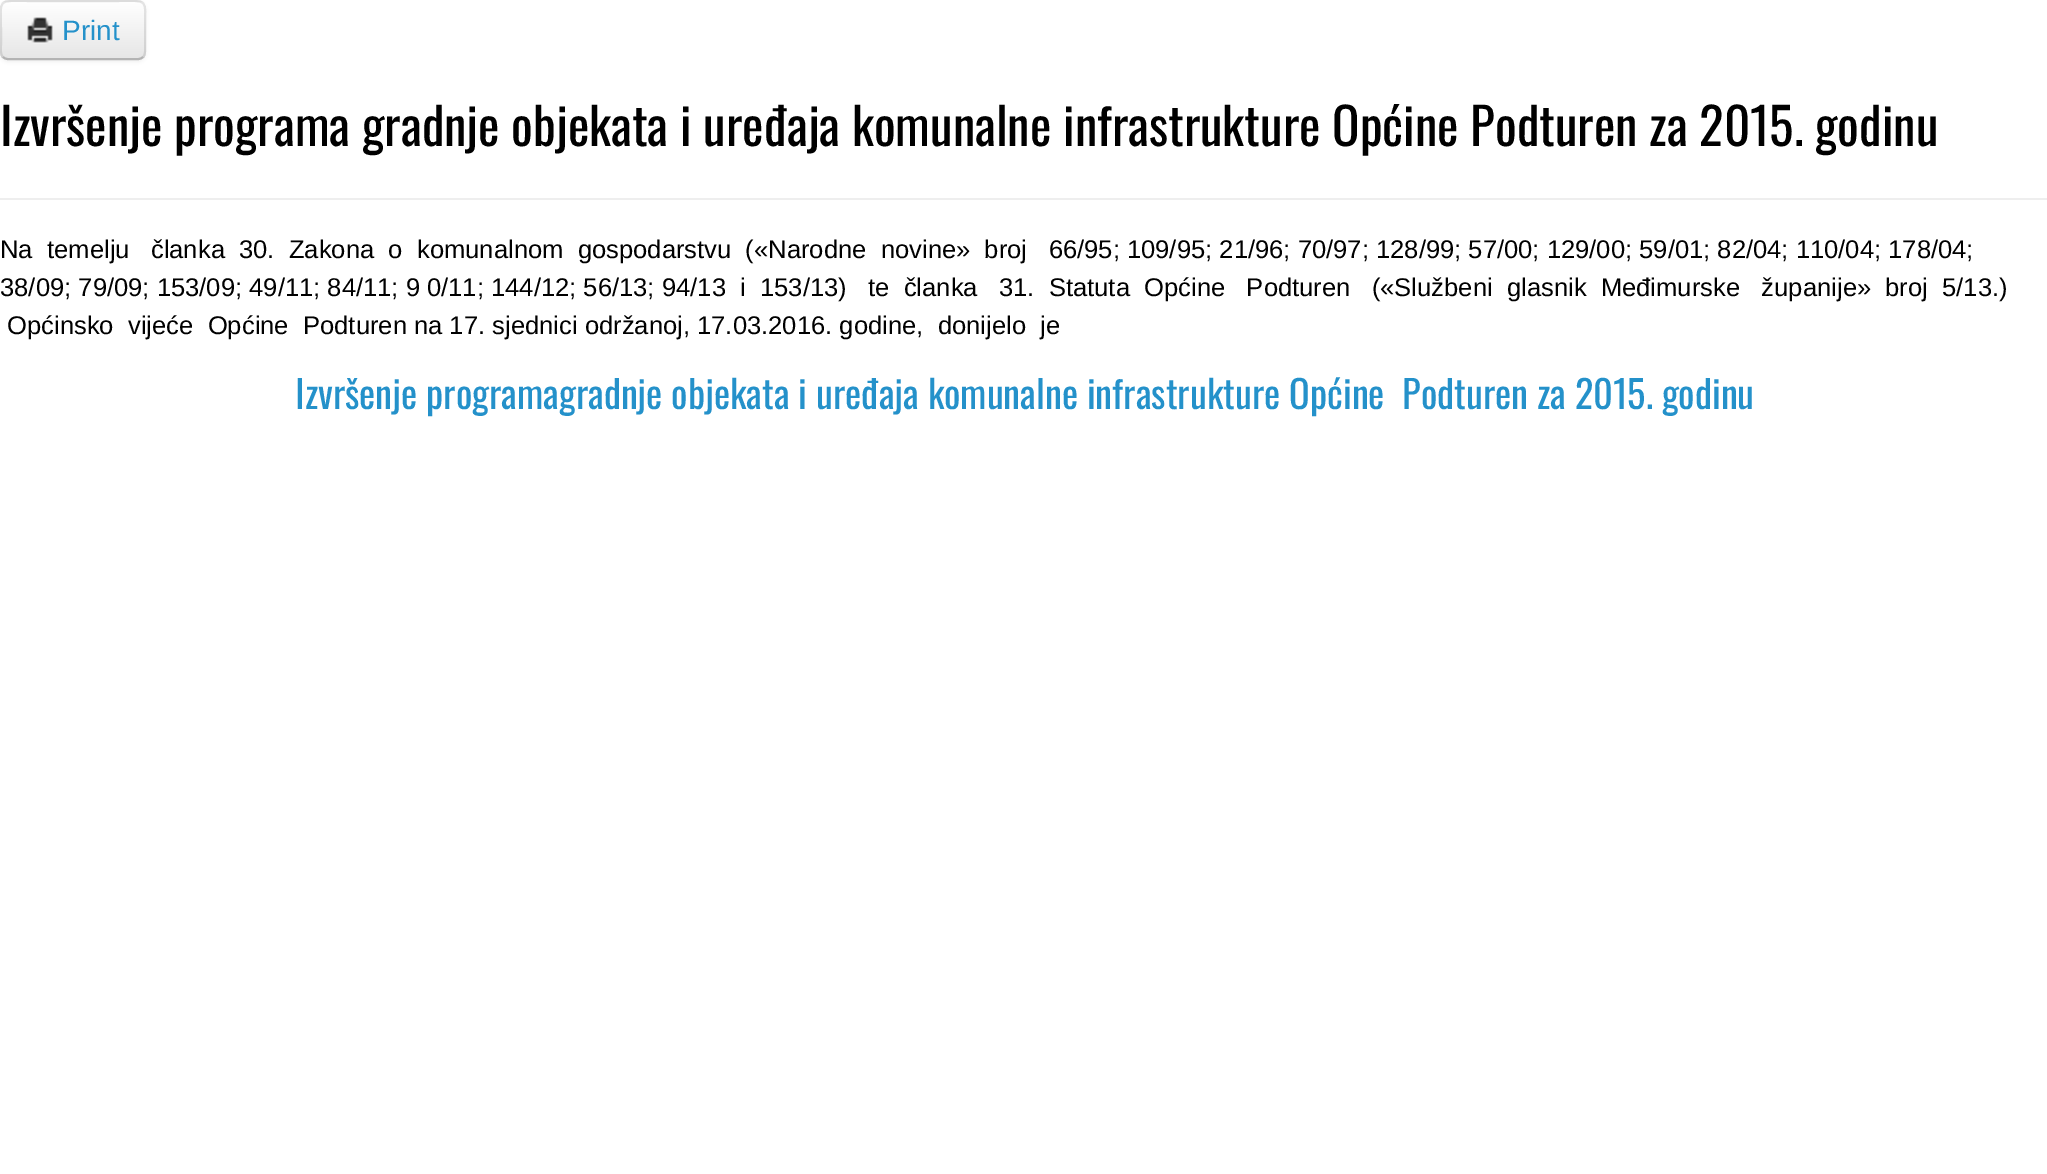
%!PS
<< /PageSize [2047 1174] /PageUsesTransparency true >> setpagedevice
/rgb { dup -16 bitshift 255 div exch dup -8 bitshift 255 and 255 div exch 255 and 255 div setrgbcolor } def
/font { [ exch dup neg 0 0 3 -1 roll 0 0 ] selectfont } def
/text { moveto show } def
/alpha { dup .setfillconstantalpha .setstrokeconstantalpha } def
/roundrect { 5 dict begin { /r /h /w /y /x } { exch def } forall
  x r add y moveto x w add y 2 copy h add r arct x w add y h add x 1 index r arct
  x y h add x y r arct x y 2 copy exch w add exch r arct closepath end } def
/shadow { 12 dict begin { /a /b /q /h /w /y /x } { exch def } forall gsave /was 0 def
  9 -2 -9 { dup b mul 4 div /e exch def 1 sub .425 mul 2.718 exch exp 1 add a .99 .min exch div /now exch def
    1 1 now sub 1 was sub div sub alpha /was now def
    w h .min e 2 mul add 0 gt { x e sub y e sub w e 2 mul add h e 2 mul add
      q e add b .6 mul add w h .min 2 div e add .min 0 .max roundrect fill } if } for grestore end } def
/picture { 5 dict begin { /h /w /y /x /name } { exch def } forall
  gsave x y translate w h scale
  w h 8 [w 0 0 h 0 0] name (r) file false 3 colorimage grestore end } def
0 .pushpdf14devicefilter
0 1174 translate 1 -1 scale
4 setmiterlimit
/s1 { /LiberationSans-Regular 28 font 16#2491CA rgb } def
/s2 { /Oswald-Regular 51 font 16#000000 rgb } def
/s3 { /LiberationSans-Regular 25.6 font 16#000000 rgb } def
/s4 { /Oswald-Regular 38.4 font 16#2491CA rgb } def
16#FFFFFF rgb
0 0 2047 1174 rectfill
16#000000 rgb
0 2 146 60 8 2 0.05 shadow
16#F5F5F5 rgb
0 0 146 60 8 roundrect fill
gsave
0 0 146 60 8 roundrect clip newpath
gsave 0 2 moveto 146 2 lineto 146 58 lineto 0 58 lineto closepath clip newpath
<< /ShadingType 2 /ColorSpace /DeviceRGB /Coords [73 2 73 58] /Extend [true true] /Function << /FunctionType 2 /Domain [0 1] /C0 [1 1 1] /C1 [0.902 0.902 0.902] /N 1 >> >> shfill grestore
grestore
16#B3B3B3 rgb
2 setlinewidth
143 57 moveto 141.5 58.5 140 59 138 59 curveto 8 59 lineto 6 59 4.5 58.5 3 57 curveto stroke
0.1 alpha
16#000000 rgb
3 57 moveto 0 54 1 48.5 1 44.5 curveto 1 30 lineto 1 -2.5 -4 1 29.5 1 curveto 116.5 1 lineto 150 1 145 -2.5 145 30 curveto 145 44.5 lineto 145 48.5 146 54 143 57 curveto stroke
1 alpha
(pic1.raw) 27 17 26 27 picture
s1
(Print) 62 40 text
16#EEEEEE rgb
0 198 2047 2 rectfill
s2
(Izvršenje programa gradnje objekata i uređaja komunalne infrastrukture Općine Podturen za 2015. godinu) 0 146 text
s3
(Na  temelju   članka  30.  Zakona  o  komunalnom  gospodarstvu  \(«Narodne  novine»  broj   66/95; 109/95; 21/96; 70/97; 128/99; 57/00; 129/00; 59/01; 82/04; 110/04; 178/04;) 0 258 text
(38/09; 79/09; 153/09; 49/11; 84/11; 9 0/11; 144/12; 56/13; 94/13  i  153/13\)   te  članka   31.  Statuta  Općine   Podturen   \(«Službeni  glasnik  Međimurske   županije»  broj  5/13.\)) 0 296 text
(Općinsko  vijeće  Općine  Podturen na 17. sjednici održanoj, 17.03.2016. godine,  donijelo  je) 7 334 text
s4
(Izvršenje programagradnje objekata i uređaja komunalne infrastrukture Općine  Podturen za 2015. godinu) 295 409 text
.poppdf14devicefilter showpage
